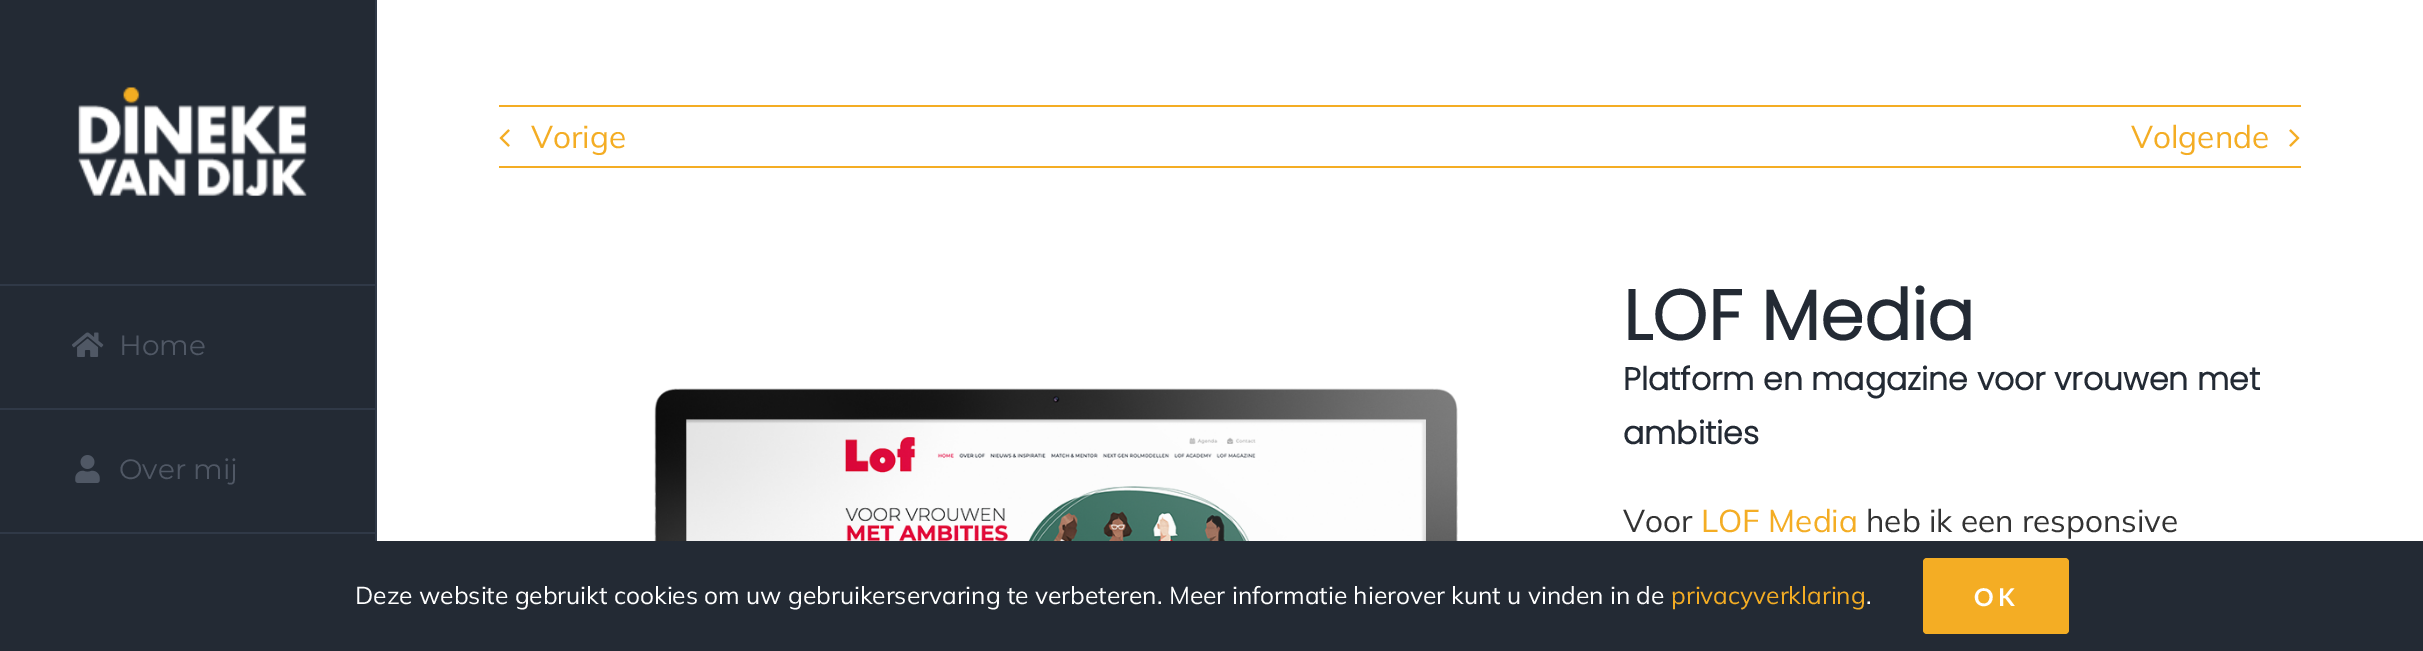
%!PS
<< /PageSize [2423 651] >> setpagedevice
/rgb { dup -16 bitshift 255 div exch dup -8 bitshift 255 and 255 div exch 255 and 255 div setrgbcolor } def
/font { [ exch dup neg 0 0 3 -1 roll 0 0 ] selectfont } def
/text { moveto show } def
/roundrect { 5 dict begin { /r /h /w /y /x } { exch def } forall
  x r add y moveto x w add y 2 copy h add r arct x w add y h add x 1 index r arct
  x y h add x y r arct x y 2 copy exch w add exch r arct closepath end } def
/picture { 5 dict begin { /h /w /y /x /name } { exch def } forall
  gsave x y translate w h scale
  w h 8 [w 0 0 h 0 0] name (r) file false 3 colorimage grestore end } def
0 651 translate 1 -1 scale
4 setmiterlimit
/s1 { /Montserrat-Regular 28 font 16#505865 rgb } def
/s2 { /Mulish-Regular 31.5 font 16#F4AD24 rgb } def
/s3 { /Poppins-Bold 70 font 16#232A34 rgb } def
/s4 { /Poppins-Bold 31.5 font 16#232A34 rgb } def
/s5 { /Mulish-Regular 31.5 font 16#333333 rgb } def
/s6 { /Mulish-Regular 24.5 font 16#FFFFFF rgb } def
/s7 { /Mulish-Regular 24.5 font 16#F4AD24 rgb } def
16#FFFFFF rgb
0 0 2423 651 rectfill
16#232A34 rgb
0 0 375 541 rectfill
16#303947 rgb
375 0 2 541 rectfill
(pic1.raw) 78 87 229 109 picture
0 284 376 2 rectfill
0 408 376 2 rectfill
(pic2.raw) 72 332 32 25 picture
s1
(Home) 119 355 text
16#303947 rgb
0 532 376 2 rectfill
(pic3.raw) 75 455 25 28 picture
s1
(Over mij) 119 479 text
16#F4AD24 rgb
499 105 1802 2 rectfill
499 166 1802 2 rectfill
(pic4.raw) 499 129 11 18 picture
s2
(Vorige) 531 148 text
(Volgende) 2131 148 text
(pic5.raw) 2289 129 11 18 picture
(pic6.raw) 654 388 804 153 picture
s3
(LOF Media) 1623 340 text
s4
(Platform en magazine voor vrouwen met) 1623 390 text
(ambities) 1623 444 text
s5
(Voor) 1623 532 text
s2
(LOF Media) 1701 532 text
s5
(heb ik een responsive) 1866 532 text
16#232A34 rgb
0 541 2423 110 rectfill
s6
(Deze website gebruikt cookies om uw gebruikerservaring te verbeteren. Meer informatie hierover kunt u vinden in de) 355 604 text
s7
(privacyverklaring) 1671 604 text
s6
(.) 1866 604 text
16#F4AD24 rgb
1923 558 146 76 4 roundrect fill
/Lato-Bold 24.5 font
16#FFFFFF rgb
1974 606 moveto 4 0 (OK) ashow
showpage
